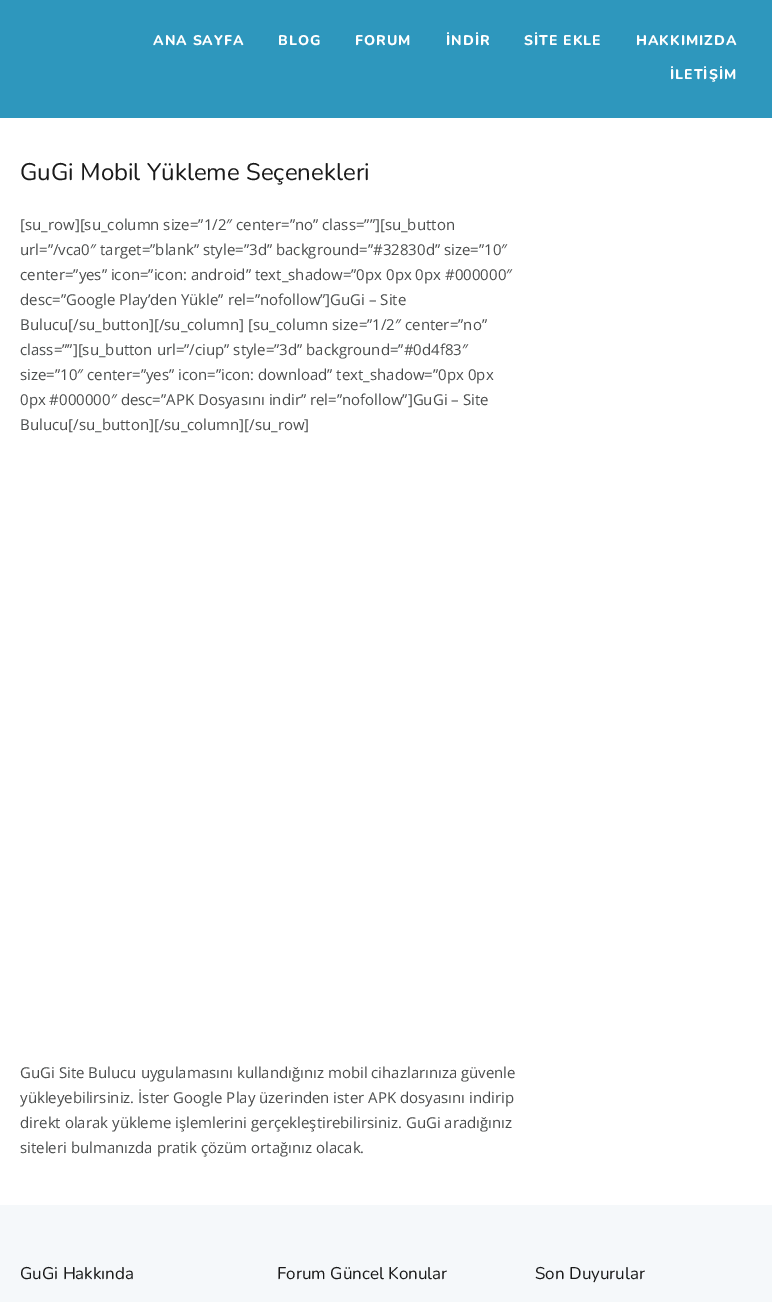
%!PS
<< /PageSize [772 1302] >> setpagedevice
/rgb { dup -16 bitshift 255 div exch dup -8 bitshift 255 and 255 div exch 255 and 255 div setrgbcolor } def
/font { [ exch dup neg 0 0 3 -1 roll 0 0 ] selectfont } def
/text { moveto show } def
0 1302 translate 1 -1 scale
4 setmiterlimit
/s1 { /Nunito-Regular 24 font 16#1A1A1A rgb } def
/s2 { /OpenSans-Regular 15 font 16#4B4D4D rgb } def
/s3 { /Nunito-Regular 17 font 16#1A1A1A rgb } def
16#FFFFFF rgb
0 0 772 1302 rectfill
16#2E97BD rgb
0 0 772 118 rectfill
/Nunito-ExtraBold 14 font
16#FFFFFF rgb
153 45 moveto 1 0 (ANA SAYFA) ashow
278 45 moveto 1 0 (BLOG) ashow
355 45 moveto 1 0 (FORUM) ashow
446 45 moveto 1 0 (İNDİR) ashow
524 45 moveto 1 0 (SİTE EKLE) ashow
636 45 moveto 1 0 (HAKKIMIZDA) ashow
670 79 moveto 1 0 (İLETİŞİM) ashow
s1
(GuGi Mobil Yükleme Seçenekleri) 20 180 text
s2
([su_row][su_column size=”1/2″ center=”no” class=””][su_button) 20 230 text
(url=”/vca0″ target=”blank” style=”3d” background=”#32830d” size=”10″) 20 255 text
(center=”yes” icon=”icon: android” text_shadow=”0px 0px 0px #000000″) 20 280 text
(desc=”Google Play’den Yükle” rel=”nofollow”]GuGi – Site) 20 305 text
(Bulucu[/su_button][/su_column] [su_column size=”1/2″ center=”no”) 20 330 text
(class=””][su_button url=”/ciup” style=”3d” background=”#0d4f83″) 20 355 text
(size=”10″ center=”yes” icon=”icon: download” text_shadow=”0px 0px) 20 380 text
(0px #000000″ desc=”APK Dosyasını indir” rel=”nofollow”]GuGi – Site) 20 405 text
(Bulucu[/su_button][/su_column][/su_row]) 20 430 text
(GuGi Site Bulucu uygulamasını kullandığınız mobil cihazlarınıza güvenle) 20 1078 text
(yükleyebilirsiniz. İster Google Play üzerinden ister APK dosyasını indirip) 20 1103 text
(direkt olarak yükleme işlemlerini gerçekleştirebilirsiniz. GuGi aradığınız) 20 1128 text
(siteleri bulmanızda pratik çözüm ortağınız olacak.) 20 1153 text
16#F5F8FA rgb
0 1205 772 97 rectfill
s3
(GuGi Hakkında) 20 1279 text
(Forum Güncel Konular) 277 1279 text
(Son Duyurular) 535 1279 text
showpage
